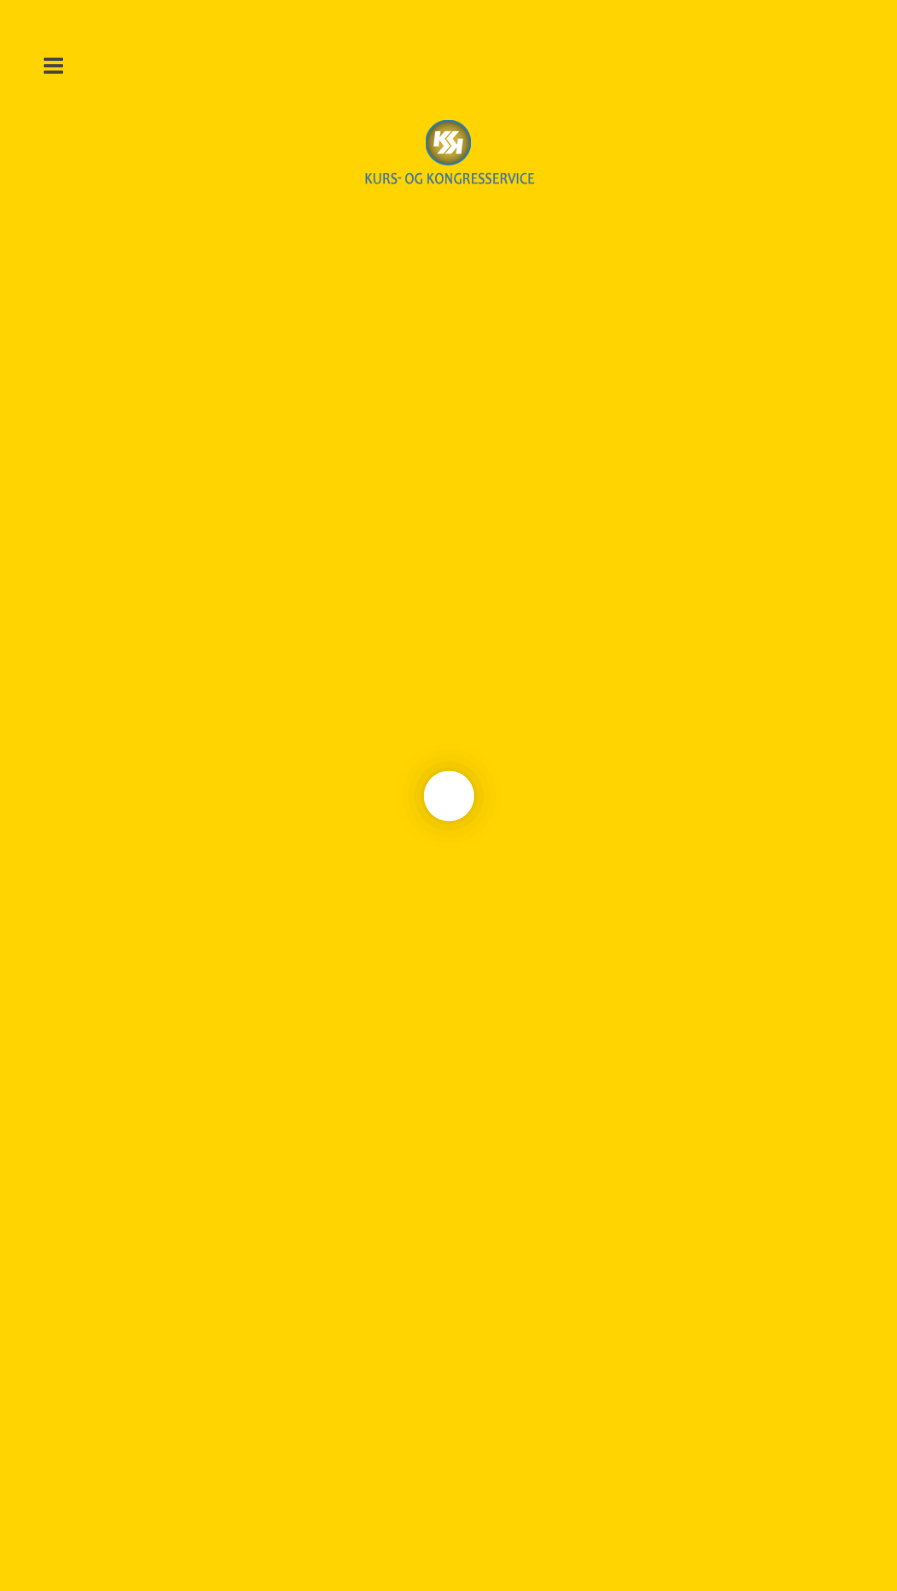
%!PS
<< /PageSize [897 1591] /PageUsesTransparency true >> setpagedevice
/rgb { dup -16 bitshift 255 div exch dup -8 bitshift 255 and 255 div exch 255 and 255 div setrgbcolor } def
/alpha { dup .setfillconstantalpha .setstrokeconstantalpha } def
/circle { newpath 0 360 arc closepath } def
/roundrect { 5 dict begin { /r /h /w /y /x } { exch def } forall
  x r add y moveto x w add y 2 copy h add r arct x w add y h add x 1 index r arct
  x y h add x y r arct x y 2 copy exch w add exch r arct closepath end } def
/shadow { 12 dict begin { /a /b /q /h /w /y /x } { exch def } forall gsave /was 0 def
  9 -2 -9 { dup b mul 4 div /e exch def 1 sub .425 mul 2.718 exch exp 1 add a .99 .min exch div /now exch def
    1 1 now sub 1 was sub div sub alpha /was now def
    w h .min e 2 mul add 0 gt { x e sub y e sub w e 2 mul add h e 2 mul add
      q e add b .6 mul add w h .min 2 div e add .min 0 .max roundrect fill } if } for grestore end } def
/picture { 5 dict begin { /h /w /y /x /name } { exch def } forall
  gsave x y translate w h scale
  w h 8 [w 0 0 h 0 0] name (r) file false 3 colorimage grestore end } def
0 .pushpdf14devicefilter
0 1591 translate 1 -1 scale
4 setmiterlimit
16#FFD400 rgb
0 0 897 1591 rectfill
(pic1.raw) 43 57 21 17 picture
(pic2.raw) 365 120 170 65 picture
16#000000 rgb
424 771 50 50 25 12.5 0.15 shadow
16#FFFFFF rgb
449 796 25 circle fill
.poppdf14devicefilter showpage
